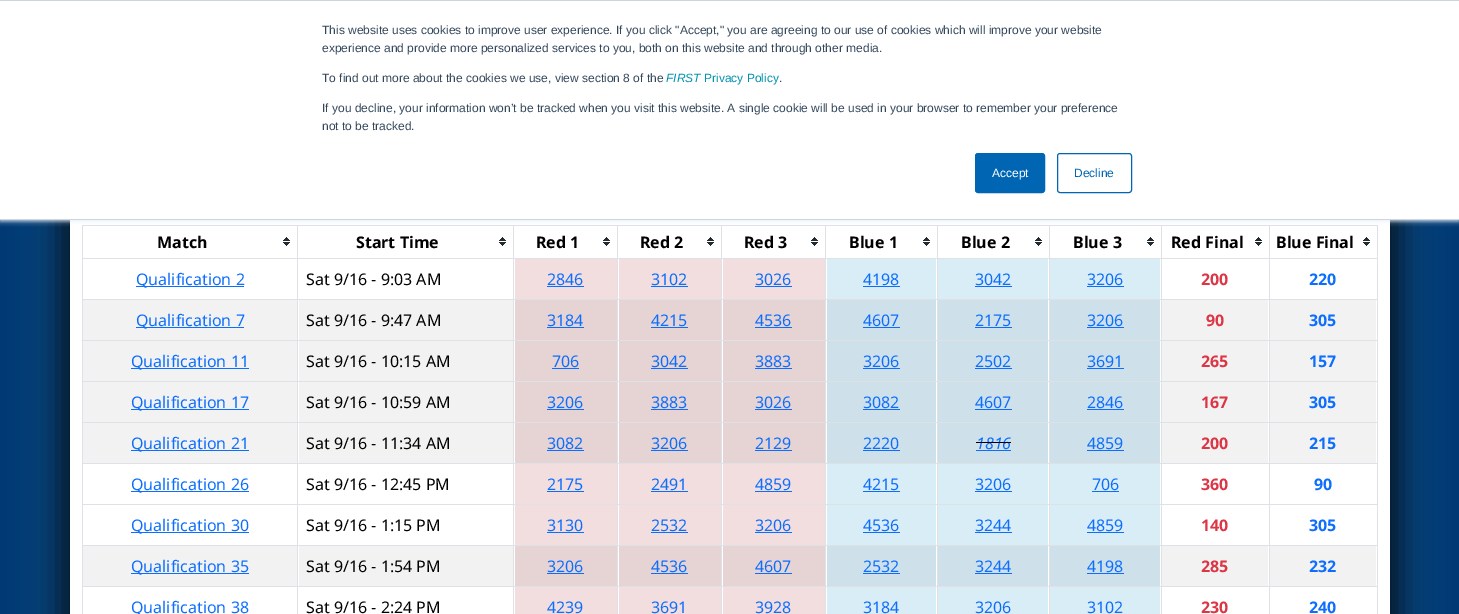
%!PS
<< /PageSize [1459 614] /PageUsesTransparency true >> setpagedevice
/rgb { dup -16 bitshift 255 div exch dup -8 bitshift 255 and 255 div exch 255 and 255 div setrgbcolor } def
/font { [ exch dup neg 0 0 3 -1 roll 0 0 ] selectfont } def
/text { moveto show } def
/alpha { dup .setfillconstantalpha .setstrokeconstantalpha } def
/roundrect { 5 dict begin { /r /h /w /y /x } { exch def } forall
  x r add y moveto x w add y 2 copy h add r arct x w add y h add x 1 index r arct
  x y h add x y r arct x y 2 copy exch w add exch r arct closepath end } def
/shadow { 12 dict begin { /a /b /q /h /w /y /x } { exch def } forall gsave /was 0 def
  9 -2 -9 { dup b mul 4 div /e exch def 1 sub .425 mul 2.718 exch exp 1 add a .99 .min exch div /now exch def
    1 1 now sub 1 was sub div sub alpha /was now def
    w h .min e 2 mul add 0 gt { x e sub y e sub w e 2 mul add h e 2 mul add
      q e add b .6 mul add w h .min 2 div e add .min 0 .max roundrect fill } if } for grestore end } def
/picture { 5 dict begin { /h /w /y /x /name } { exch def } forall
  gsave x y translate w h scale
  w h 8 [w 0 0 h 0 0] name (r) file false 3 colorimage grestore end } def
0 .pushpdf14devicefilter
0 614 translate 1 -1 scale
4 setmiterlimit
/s1 { /LiberationSans-Regular 12 font 16#33475B rgb } def
/s2 { /LiberationSans-Italic 12 font 16#0091AE rgb } def
/s3 { /LiberationSans-Regular 12 font 16#0091AE rgb } def
/s4 { /LiberationSans-Regular 12 font 16#FFFFFF rgb } def
/s5 { /LiberationSans-Regular 12 font 16#0066B3 rgb } def
/s6 { /NotoSans-Bold 16 font 16#000000 rgb } def
/s7 { /NotoSans-Regular 16 font 16#0D6EFD rgb } def
/s8 { /NotoSans-Regular 16 font 16#000000 rgb } def
/s9 { /NotoSans-Bold 16 font 16#DC3545 rgb } def
/s10 { /NotoSans-Bold 16 font 16#0D6EFD rgb } def
/s11 { /NotoSans-Italic 16 font 16#0D6EFD rgb } def
16#FFFFFF rgb
0 0 1459 614 rectfill
gsave 0 220 moveto 1459 220 lineto 1459 614 lineto 0 614 lineto closepath clip newpath
<< /ShadingType 2 /ColorSpace /DeviceRGB /Coords [0 426 1459 426] /Extend [true true] /Function << /FunctionType 3 /Domain [0 1] /Functions [<< /FunctionType 2 /Domain [0 1] /C0 [0 0.224 0.455] /C1 [0.424 0.761 0.788] /N 1 >> << /FunctionType 2 /Domain [0 1] /C0 [0.424 0.761 0.788] /C1 [0 0.224 0.455] /N 1 >>] /Bounds [0.5] /Encode [0 1 0 1] >> >> shfill grestore
16#000000 rgb
82 -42 1320 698 0 14 0.6 shadow
58 -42 1320 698 0 14 0.6 shadow
16#FFFFFF rgb
70 220 1320 394 rectfill
16#DEE2E6 rgb
82 225 1296 1 rectfill
82 258 1296 1 rectfill
82 299 1296 1 rectfill
82 340 1296 1 rectfill
82 381 1296 1 rectfill
82 422 1296 1 rectfill
82 463 1296 1 rectfill
82 504 1296 1 rectfill
82 545 1296 1 rectfill
82 586 1296 1 rectfill
82 225 1 389 rectfill
297 225 1 389 rectfill
513 225 1 389 rectfill
617 225 1 389 rectfill
721 225 1 389 rectfill
825 225 1 389 rectfill
937 225 1 389 rectfill
1049 225 1 389 rectfill
1161 225 1 389 rectfill
1377 225 1 389 rectfill
1269 225 1 389 rectfill
16#EAF0F6 rgb
0 1 1459 220 0 2.5 1 shadow
16#FFFFFF rgb
0 1 1459 218 rectfill
16#CBD6E2 rgb
0 0 1459 1 rectfill
0 219 1459 1 rectfill
s1
(This website uses cookies to improve user experience. If you click "Accept," you are agreeing to our use of cookies which will improve your website) 322 34 text
(experience and provide more personalized services to you, both on this website and through other media.) 322 52 text
(To find out more about the cookies we use, view section 8 of the) 322 82 text
s2
(FIRST) 666 82 text
s3
(Privacy Policy) 704 82 text
s1
(.) 779 82 text
(If you decline, your information won’t be tracked when you visit this website. A single cookie will be used in your browser to remember your preference) 322 112 text
(not to be tracked.) 322 130 text
16#0066B3 rgb
975.5 153.5 69 39 2.5 roundrect gsave fill grestore
stroke
s4
(Accept) 992 177 text
16#0066B3 rgb
1057.5 153.5 74 39 2.5 roundrect stroke
(Decline) 1074 177 text
(pic1.raw) 283 237 7 9 picture
s6
(Match) 157 248 text
(pic1.raw) 499 237 7 9 picture
(Start Time) 356 248 text
(pic1.raw) 603 237 7 9 picture
(Red 1) 536 248 text
(pic1.raw) 707 237 7 9 picture
(Red 2) 640 248 text
(pic1.raw) 811 237 7 9 picture
(Red 3) 744 248 text
(pic1.raw) 923 237 7 9 picture
(Blue 1) 849 248 text
(pic1.raw) 1035 237 7 9 picture
(Blue 2) 961 248 text
(pic1.raw) 1147 237 7 9 picture
(Blue 3) 1073 248 text
(pic1.raw) 1255 237 7 9 picture
(Red Final) 1171 248 text
(pic1.raw) 1363 237 7 9 picture
(Blue Final) 1276 248 text
16#0D6EFD rgb
136 286 108 1 rectfill
s7
(Qualification 2) 136 285 text
s8
(Sat 9/16 - 9:03 AM) 306 285 text
16#F2DEDE rgb
515 259 102 40 rectfill
s7
(2846) 547 285 text
547 286 37 1 rectfill
16#F2DEDE rgb
619 259 102 40 rectfill
s7
(3102) 651 285 text
651 286 37 1 rectfill
16#F2DEDE rgb
723 259 102 40 rectfill
s7
(3026) 755 285 text
755 286 37 1 rectfill
16#D9EDF7 rgb
827 259 109 40 rectfill
s7
(4198) 863 285 text
863 286 37 1 rectfill
16#D9EDF7 rgb
938 259 110 40 rectfill
s7
(3042) 975 285 text
975 286 37 1 rectfill
16#D9EDF7 rgb
1050 259 110 40 rectfill
s7
(3206) 1087 285 text
1087 286 37 1 rectfill
s9
(200) 1201 285 text
s10
(220) 1309 285 text
16#F2F2F2 rgb
83 300 214 40 rectfill
16#0D6EFD rgb
136 327 108 1 rectfill
s7
(Qualification 7) 136 326 text
16#F2F2F2 rgb
299 300 214 40 rectfill
s8
(Sat 9/16 - 9:47 AM) 306 326 text
16#E6D3D3 rgb
515 300 102 40 rectfill
s7
(3184) 547 326 text
547 327 37 1 rectfill
16#E6D3D3 rgb
619 300 102 40 rectfill
s7
(4215) 651 326 text
651 327 37 1 rectfill
16#E6D3D3 rgb
723 300 102 40 rectfill
s7
(4536) 755 326 text
755 327 37 1 rectfill
16#CEE1EB rgb
827 300 109 40 rectfill
s7
(4607) 863 326 text
863 327 37 1 rectfill
16#CEE1EB rgb
938 300 110 40 rectfill
s7
(2175) 975 326 text
975 327 37 1 rectfill
16#CEE1EB rgb
1050 300 110 40 rectfill
s7
(3206) 1087 326 text
1087 327 37 1 rectfill
16#F2F2F2 rgb
1162 300 106 40 rectfill
s9
(90) 1206 326 text
16#F2F2F2 rgb
1270 300 106 40 rectfill
s10
(305) 1309 326 text
16#F2F2F2 rgb
83 341 214 40 rectfill
16#0D6EFD rgb
131 368 118 1 rectfill
s7
(Qualification 11) 131 367 text
16#F2F2F2 rgb
299 341 214 40 rectfill
s8
(Sat 9/16 - 10:15 AM) 306 367 text
16#E6D3D3 rgb
515 341 102 40 rectfill
s7
(706) 552 367 text
552 368 27 1 rectfill
16#E6D3D3 rgb
619 341 102 40 rectfill
s7
(3042) 651 367 text
651 368 37 1 rectfill
16#E6D3D3 rgb
723 341 102 40 rectfill
s7
(3883) 755 367 text
755 368 37 1 rectfill
16#CEE1EB rgb
827 341 109 40 rectfill
s7
(3206) 863 367 text
863 368 37 1 rectfill
16#CEE1EB rgb
938 341 110 40 rectfill
s7
(2502) 975 367 text
975 368 37 1 rectfill
16#CEE1EB rgb
1050 341 110 40 rectfill
s7
(3691) 1087 367 text
1087 368 37 1 rectfill
16#F2F2F2 rgb
1162 341 106 40 rectfill
s9
(265) 1201 367 text
16#F2F2F2 rgb
1270 341 106 40 rectfill
s10
(157) 1309 367 text
16#F2F2F2 rgb
83 382 214 40 rectfill
16#0D6EFD rgb
131 409 118 1 rectfill
s7
(Qualification 17) 131 408 text
16#F2F2F2 rgb
299 382 214 40 rectfill
s8
(Sat 9/16 - 10:59 AM) 306 408 text
16#E6D3D3 rgb
515 382 102 40 rectfill
s7
(3206) 547 408 text
547 409 37 1 rectfill
16#E6D3D3 rgb
619 382 102 40 rectfill
s7
(3883) 651 408 text
651 409 37 1 rectfill
16#E6D3D3 rgb
723 382 102 40 rectfill
s7
(3026) 755 408 text
755 409 37 1 rectfill
16#CEE1EB rgb
827 382 109 40 rectfill
s7
(3082) 863 408 text
863 409 37 1 rectfill
16#CEE1EB rgb
938 382 110 40 rectfill
s7
(4607) 975 408 text
975 409 37 1 rectfill
16#CEE1EB rgb
1050 382 110 40 rectfill
s7
(2846) 1087 408 text
1087 409 37 1 rectfill
16#F2F2F2 rgb
1162 382 106 40 rectfill
s9
(167) 1201 408 text
16#F2F2F2 rgb
1270 382 106 40 rectfill
s10
(305) 1309 408 text
16#F2F2F2 rgb
83 423 214 40 rectfill
16#0D6EFD rgb
131 450 118 1 rectfill
s7
(Qualification 21) 131 449 text
16#F2F2F2 rgb
299 423 214 40 rectfill
s8
(Sat 9/16 - 11:34 AM) 306 449 text
16#E6D3D3 rgb
515 423 102 40 rectfill
s7
(3082) 547 449 text
547 450 37 1 rectfill
16#E6D3D3 rgb
619 423 102 40 rectfill
s7
(3206) 651 449 text
651 450 37 1 rectfill
16#E6D3D3 rgb
723 423 102 40 rectfill
s7
(2129) 755 449 text
755 450 37 1 rectfill
16#CEE1EB rgb
827 423 109 40 rectfill
s7
(2220) 863 449 text
863 450 37 1 rectfill
16#CEE1EB rgb
938 423 110 40 rectfill
s11
(1816) 976 449 text
976 450 35 1 rectfill
16#000000 rgb
976 442 35 1 rectfill
16#CEE1EB rgb
1050 423 110 40 rectfill
s7
(4859) 1087 449 text
1087 450 37 1 rectfill
16#F2F2F2 rgb
1162 423 106 40 rectfill
s9
(200) 1201 449 text
16#F2F2F2 rgb
1270 423 106 40 rectfill
s10
(215) 1309 449 text
131 491 118 1 rectfill
s7
(Qualification 26) 131 490 text
s8
(Sat 9/16 - 12:45 PM) 306 490 text
16#F2DEDE rgb
515 464 102 40 rectfill
s7
(2175) 547 490 text
547 491 37 1 rectfill
16#F2DEDE rgb
619 464 102 40 rectfill
s7
(2491) 651 490 text
651 491 37 1 rectfill
16#F2DEDE rgb
723 464 102 40 rectfill
s7
(4859) 755 490 text
755 491 37 1 rectfill
16#D9EDF7 rgb
827 464 109 40 rectfill
s7
(4215) 863 490 text
863 491 37 1 rectfill
16#D9EDF7 rgb
938 464 110 40 rectfill
s7
(3206) 975 490 text
975 491 37 1 rectfill
16#D9EDF7 rgb
1050 464 110 40 rectfill
s7
(706) 1092 490 text
1092 491 27 1 rectfill
s9
(360) 1201 490 text
s10
(90) 1314 490 text
131 532 118 1 rectfill
s7
(Qualification 30) 131 531 text
s8
(Sat 9/16 - 1:15 PM) 306 531 text
16#F2DEDE rgb
515 505 102 40 rectfill
s7
(3130) 547 531 text
547 532 37 1 rectfill
16#F2DEDE rgb
619 505 102 40 rectfill
s7
(2532) 651 531 text
651 532 37 1 rectfill
16#F2DEDE rgb
723 505 102 40 rectfill
s7
(3206) 755 531 text
755 532 37 1 rectfill
16#D9EDF7 rgb
827 505 109 40 rectfill
s7
(4536) 863 531 text
863 532 37 1 rectfill
16#D9EDF7 rgb
938 505 110 40 rectfill
s7
(3244) 975 531 text
975 532 37 1 rectfill
16#D9EDF7 rgb
1050 505 110 40 rectfill
s7
(4859) 1087 531 text
1087 532 37 1 rectfill
s9
(140) 1201 531 text
s10
(305) 1309 531 text
16#F2F2F2 rgb
83 546 214 40 rectfill
16#0D6EFD rgb
131 573 118 1 rectfill
s7
(Qualification 35) 131 572 text
16#F2F2F2 rgb
299 546 214 40 rectfill
s8
(Sat 9/16 - 1:54 PM) 306 572 text
16#E6D3D3 rgb
515 546 102 40 rectfill
s7
(3206) 547 572 text
547 573 37 1 rectfill
16#E6D3D3 rgb
619 546 102 40 rectfill
s7
(4536) 651 572 text
651 573 37 1 rectfill
16#E6D3D3 rgb
723 546 102 40 rectfill
s7
(4607) 755 572 text
755 573 37 1 rectfill
16#CEE1EB rgb
827 546 109 40 rectfill
s7
(2532) 863 572 text
863 573 37 1 rectfill
16#CEE1EB rgb
938 546 110 40 rectfill
s7
(3244) 975 572 text
975 573 37 1 rectfill
16#CEE1EB rgb
1050 546 110 40 rectfill
s7
(4198) 1087 572 text
1087 573 37 1 rectfill
16#F2F2F2 rgb
1162 546 106 40 rectfill
s9
(285) 1201 572 text
16#F2F2F2 rgb
1270 546 106 40 rectfill
s10
(232) 1309 572 text
s7
(Qualification 38) 131 613 text
s8
(Sat 9/16 - 2:24 PM) 306 613 text
16#F2DEDE rgb
515 587 102 27 rectfill
s7
(4239) 547 613 text
16#F2DEDE rgb
619 587 102 27 rectfill
s7
(3691) 651 613 text
16#F2DEDE rgb
723 587 102 27 rectfill
s7
(3928) 755 613 text
16#D9EDF7 rgb
827 587 109 27 rectfill
s7
(3184) 863 613 text
16#D9EDF7 rgb
938 587 110 27 rectfill
s7
(3206) 975 613 text
16#D9EDF7 rgb
1050 587 110 27 rectfill
s7
(3102) 1087 613 text
s9
(230) 1201 613 text
s10
(240) 1309 613 text
.poppdf14devicefilter showpage
